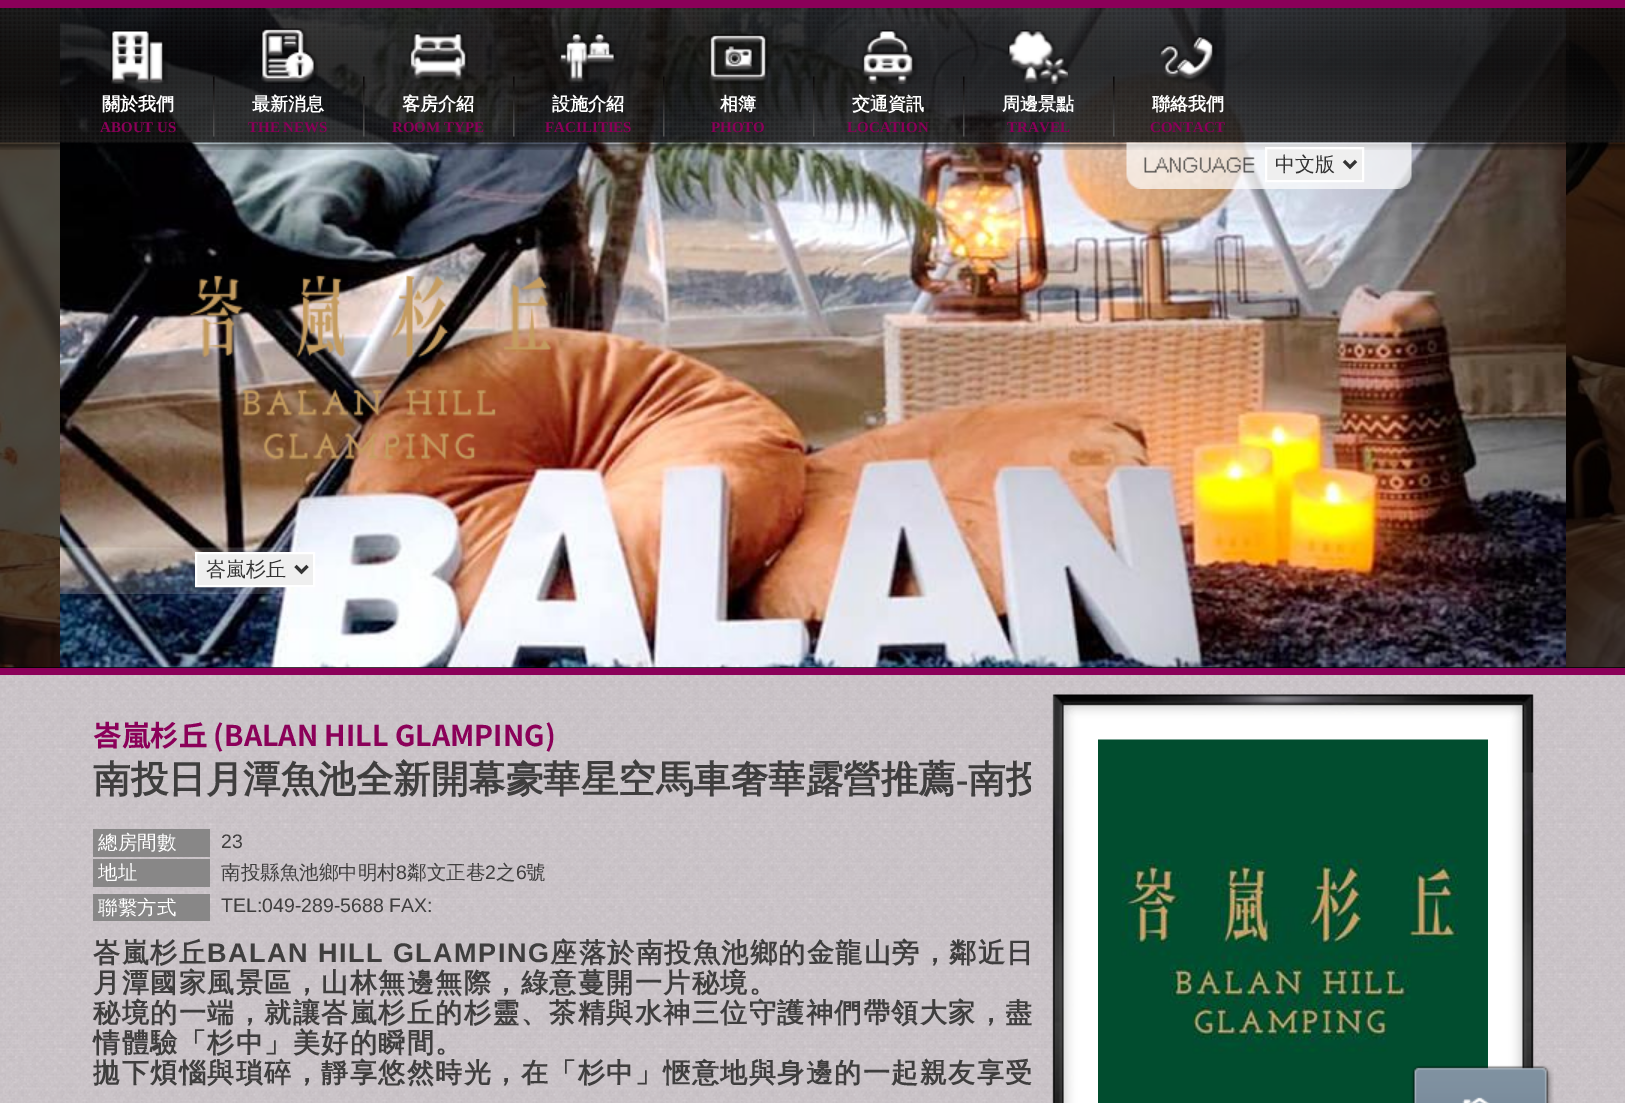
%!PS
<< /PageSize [1625 1103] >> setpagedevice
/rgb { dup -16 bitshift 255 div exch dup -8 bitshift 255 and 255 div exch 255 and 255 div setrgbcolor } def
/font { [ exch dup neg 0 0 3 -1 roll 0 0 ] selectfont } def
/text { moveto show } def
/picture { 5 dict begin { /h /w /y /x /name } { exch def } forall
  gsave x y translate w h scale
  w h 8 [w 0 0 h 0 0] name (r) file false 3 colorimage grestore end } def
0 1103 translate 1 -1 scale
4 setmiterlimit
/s1 { /WenQuanYiZenHei-Bold 18 font 16#FFFFFF rgb } def
/s2 { /LiberationSerif-Bold 15 font 16#8B0059 rgb } def
/s3 { /WenQuanYiZenHei-Medium 20 font 16#333333 rgb } def
/s4 { /NotoSansTC-Bold 28.5 font 16#8B0059 rgb } def
/s5 { /WenQuanYiZenHei-Bold 37.5 font 16#3F3E3E rgb } def
/s6 { /LiberationSerif-Bold 37.5 font 16#3F3E3E rgb } def
/s7 { /WenQuanYiZenHei-Medium 19.5 font 16#FFFFFF rgb } def
/s8 { /LiberationSans-Regular 19.5 font 16#3F3E3E rgb } def
/s9 { /WenQuanYiZenHei-Medium 19.5 font 16#3F3E3E rgb } def
16#FFFFFF rgb
0 0 1625 1103 rectfill
(pic1.raw) 0 675 1625 428 picture
16#8B0059 rgb
0 668 1625 7 rectfill
16#000000 rgb
0 8 1625 660 rectfill
(pic2.raw) 0 8 60 660 picture
(pic3.raw) 60 8 1506 660 picture
(pic4.raw) 1566 8 59 660 picture
(pic5.raw) 0 8 1625 142 picture
16#8B0059 rgb
0 0 1625 8 rectfill
(pic6.raw) 110 30 58 54 picture
s1
(關於我們) 102 110 text
s2
(ABOUT US) 100 132 text
(pic7.raw) 213 76 2 61 picture
(pic8.raw) 261 28 57 56 picture
s1
(最新消息) 252 110 text
s2
(THE NEWS) 248 132 text
(pic9.raw) 363 76 2 61 picture
(pic10.raw) 408 32 60 51 picture
s1
(客房介紹) 402 110 text
s2
(ROOM TYPE) 392 132 text
(pic11.raw) 513 76 2 61 picture
(pic12.raw) 559 32 59 52 picture
s1
(設施介紹) 552 110 text
s2
(FACILITIES) 545 132 text
(pic13.raw) 663 76 2 61 picture
(pic14.raw) 708 34 60 50 picture
s1
(相簿) 720 110 text
s2
(PHOTO) 711 132 text
(pic15.raw) 813 76 2 61 picture
(pic16.raw) 861 29 57 55 picture
s1
(交通資訊) 852 110 text
s2
(LOCATION) 847 132 text
(pic17.raw) 963 76 2 61 picture
(pic18.raw) 1008 29 60 55 picture
s1
(周邊景點) 1002 110 text
s2
(TRAVEL) 1007 132 text
(pic19.raw) 1113 76 2 61 picture
(pic20.raw) 1159 36 58 47 picture
s1
(聯絡我們) 1152 110 text
s2
(CONTACT) 1150 132 text
(pic21.raw) 190 275 361 185 picture
(pic22.raw) 1126 142 286 47 picture
16#EFEFEF rgb
1266 148 moveto 1363 148 lineto 1363 181 lineto 1266 181 lineto closepath gsave fill grestore
16#FFFFFF rgb
2 setlinewidth
stroke
16#333333 rgb
3 setlinewidth
1344 161 moveto 1350 167 lineto 1356 161 lineto stroke
s3
(中文版) 1275 171 text
(pic23.raw) 60 547 406 47 picture
16#EFEFEF rgb
196 553 moveto 314 553 lineto 314 586 lineto 196 586 lineto closepath gsave fill grestore
16#FFFFFF rgb
2 setlinewidth
stroke
16#333333 rgb
3 setlinewidth
295.5 566 moveto 301.5 572 lineto 307.5 566 lineto stroke
(峇嵐杉丘) 206 576 text
s4
(峇嵐杉丘 \(BALAN HILL GLAMPING\)) 93 746 text
s5
(南投日月潭魚池全新開幕豪華星空馬車奢華露營推薦) 93 792 text
s6
(-) 956 792 text
gsave
93 753 938 54 rectclip
s5
(南投) 968 792 text
grestore
16#888787 rgb
93 829 117 28 rectfill
s7
(總房間數) 98 849 text
s8
(23) 221 848 text
16#888787 rgb
93 859 117 28 rectfill
s7
(地址) 98 879 text
s9
(南投縣魚池鄉中明村) 221 879 text
s8
(8) 396 879 text
s9
(鄰文正巷) 407 879 text
s8
(2) 485 879 text
s9
(之) 496 879 text
s8
(6) 516 879 text
s9
(號) 526 879 text
16#888787 rgb
93 894 117 27 rectfill
s7
(聯繫方式) 98 914 text
s8
(TEL:049-289-5688 FAX:) 221 912 text
(pic24.raw) 1052 694 482 409 picture
(pic25.raw) 1098 739 390 364 picture
/WenQuanYiZenHei-Bold 27 font
93 962 moveto 1.5 0 (峇嵐杉丘) ashow
/LiberationSans-Bold 27 font
207 962 moveto 1.5 0 (BALAN HILL GLAMPING) ashow
/WenQuanYiZenHei-Bold 27 font
550 962 moveto 1.5 0 (座落於南投魚池鄉的金龍山旁，鄰近日) ashow
93 992 moveto 1.5 0 (月潭國家風景區，山林無邊無際，綠意蔓開一片秘境。) ashow
93 1022 moveto 1.5 0 (秘境的一端，就讓峇嵐杉丘的杉靈、茶精與水神三位守護神們帶領大家，盡) ashow
93 1052 moveto 1.5 0 (情體驗「杉中」美好的瞬間。) ashow
93 1082 moveto 1.5 0 (拋下煩惱與瑣碎，靜享悠然時光，在「杉中」愜意地與身邊的一起親友享受) ashow
(pic26.raw) 1411 1065 143 38 picture
showpage
